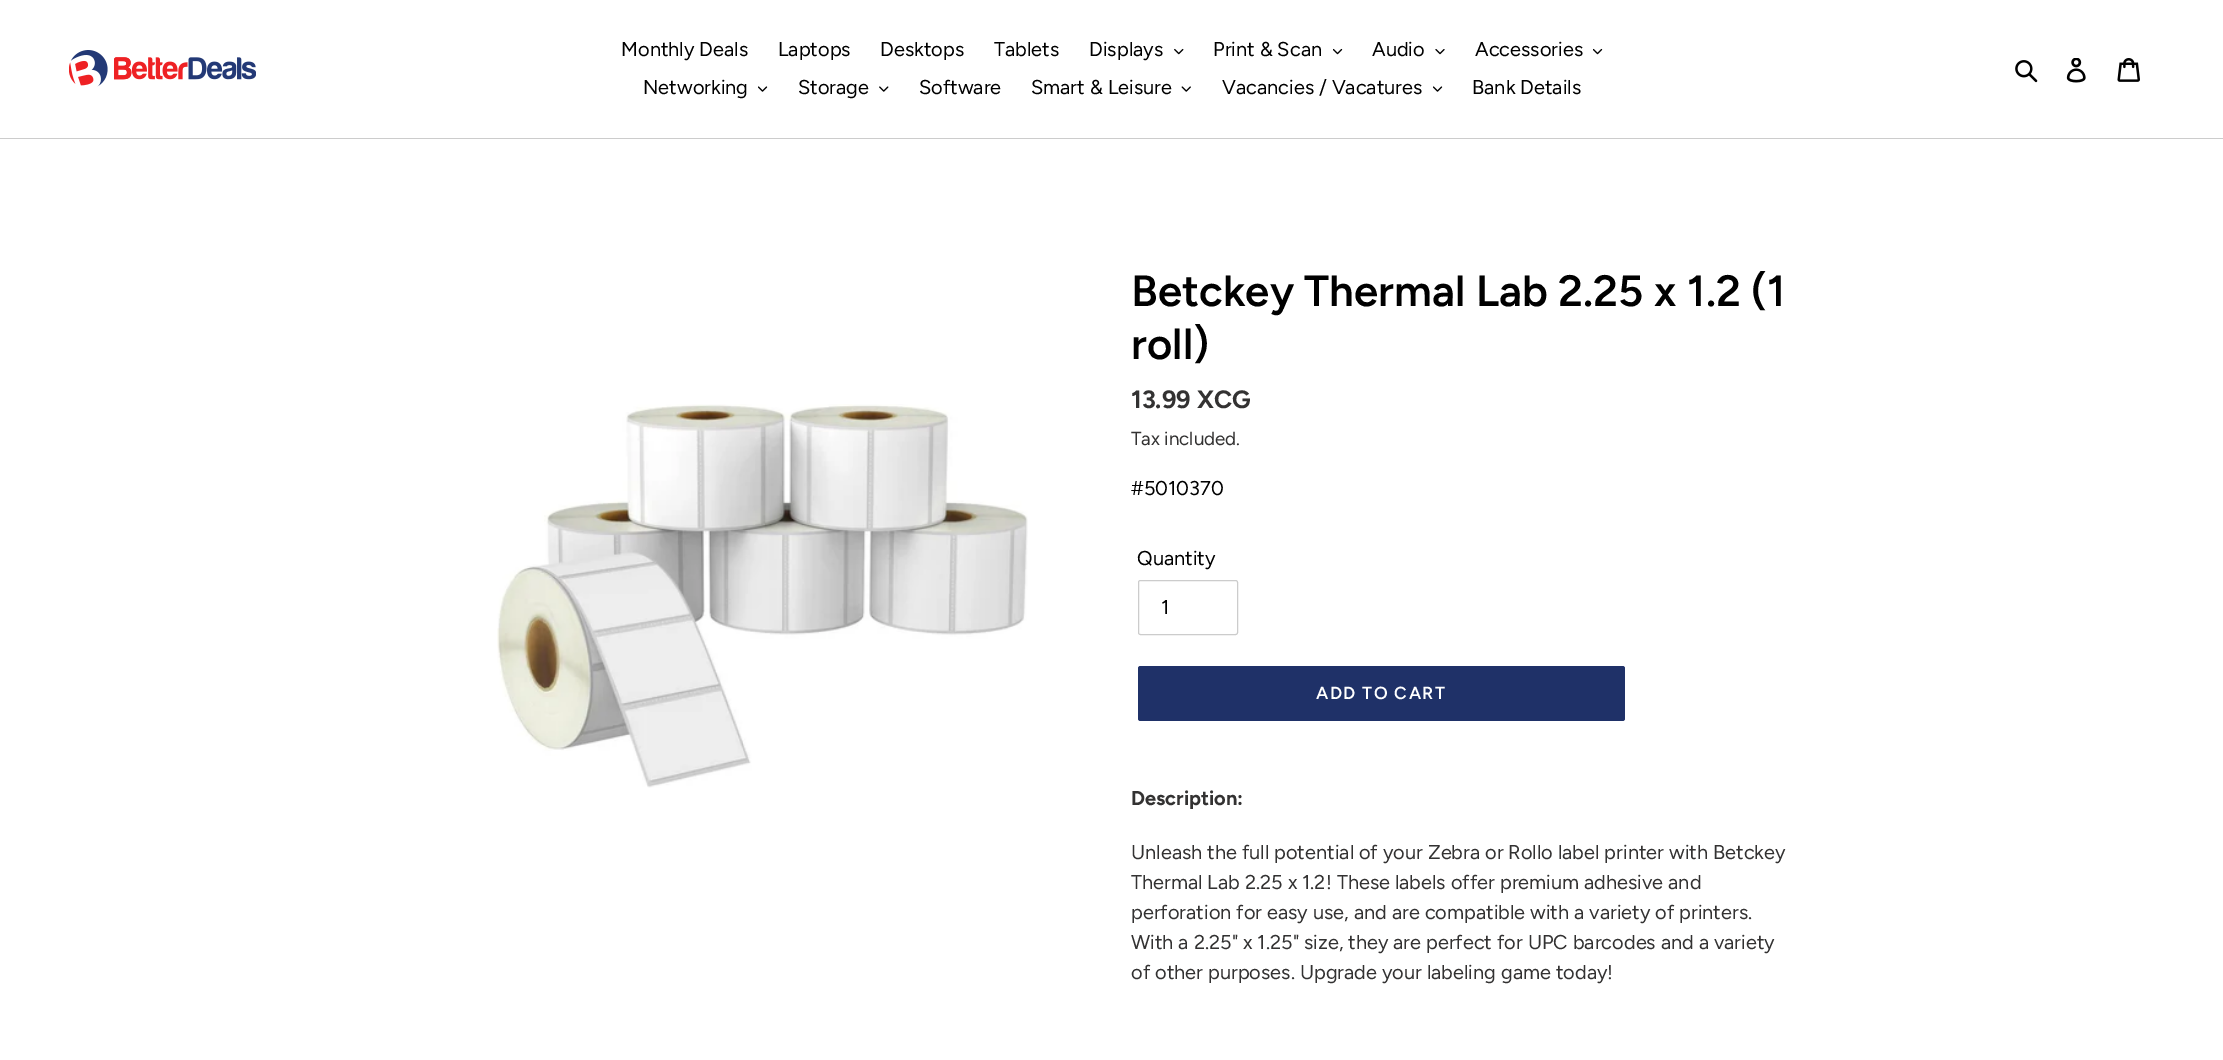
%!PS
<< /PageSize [2223 1060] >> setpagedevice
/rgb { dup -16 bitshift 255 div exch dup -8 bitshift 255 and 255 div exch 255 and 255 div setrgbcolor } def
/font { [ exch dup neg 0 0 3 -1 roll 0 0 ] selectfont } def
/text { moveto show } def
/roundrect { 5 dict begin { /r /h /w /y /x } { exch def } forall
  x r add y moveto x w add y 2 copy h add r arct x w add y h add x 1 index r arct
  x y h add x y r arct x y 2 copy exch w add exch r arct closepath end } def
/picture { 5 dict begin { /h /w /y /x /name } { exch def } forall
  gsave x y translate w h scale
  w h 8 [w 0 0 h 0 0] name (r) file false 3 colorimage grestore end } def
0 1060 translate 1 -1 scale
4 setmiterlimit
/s1 { /Figtree-Regular 20 font 16#000000 rgb } def
/s2 { /Figtree-SemiBold 43.75 font 16#000000 rgb } def
/s3 { /Figtree-Bold 25 font 16#333232 rgb } def
/s4 { /Figtree-Regular 18.75 font 16#333232 rgb } def
/s5 { /Figtree-Bold 20 font 16#333232 rgb } def
/s6 { /Figtree-Regular 20 font 16#333232 rgb } def
16#FFFFFF rgb
0 0 2223 1060 rectfill
16#CCCCCC rgb
0 138 2223 1 rectfill
(pic1.raw) 69 50 187 37 picture
s1
(Monthly Deals) 621 56 text
(Laptops) 778 56 text
(Desktops) 880 56 text
(Tablets) 994 56 text
(Displays) 1089 56 text
(pic2.raw) 1174 48 10 7 picture
(Print & Scan) 1213 56 text
(pic3.raw) 1333 48 10 7 picture
(Audio) 1372 56 text
(pic4.raw) 1435 49 10 6 picture
(Accessories) 1475 56 text
(pic3.raw) 1593 48 10 7 picture
(Networking) 643 94 text
(pic5.raw) 758 86 10 6 picture
(Storage) 798 94 text
(pic6.raw) 879 86 10 6 picture
(Software) 919 94 text
(Smart & Leisure) 1031 94 text
(pic7.raw) 1181 86 10 6 picture
(Vacancies / Vacatures) 1222 94 text
(pic5.raw) 1433 86 10 6 picture
(Bank Details) 1472 94 text
(pic8.raw) 2015 60 23 23 picture
(pic9.raw) 2066 58 20 25 picture
(pic10.raw) 2117 58 23 24 picture
(pic11.raw) 497 404 531 384 picture
s2
(Betckey Thermal Lab 2.25 x 1.2 \(1) 1131 306 text
(roll\)) 1131 359 text
s3
(13.99 XCG) 1131 408 text
s4
(Tax included.) 1131 445 text
s1
(#5010370) 1131 495 text
(Quantity) 1137 565 text
16#CCCCCC rgb
1138.5 580.5 99 54 2 roundrect stroke
s1
(1) 1161 614 text
16#1F3168 rgb
1138 666 487 55 2.5 roundrect fill
/Figtree-SemiBold 17.5 font
16#FFFFFF rgb
1316 699 moveto 1.4 0 (ADD TO CART) ashow
s5
(Description:) 1131 805 text
s6
(Unleash the full potential of your Zebra or Rollo label printer with Betckey) 1131 859 text
(Thermal Lab 2.25 x 1.2! These labels offer premium adhesive and) 1131 889 text
(perforation for easy use, and are compatible with a variety of printers.) 1131 919 text
(With a 2.25" x 1.25" size, they are perfect for UPC barcodes and a variety) 1131 949 text
(of other purposes. Upgrade your labeling game today!) 1131 979 text
showpage
